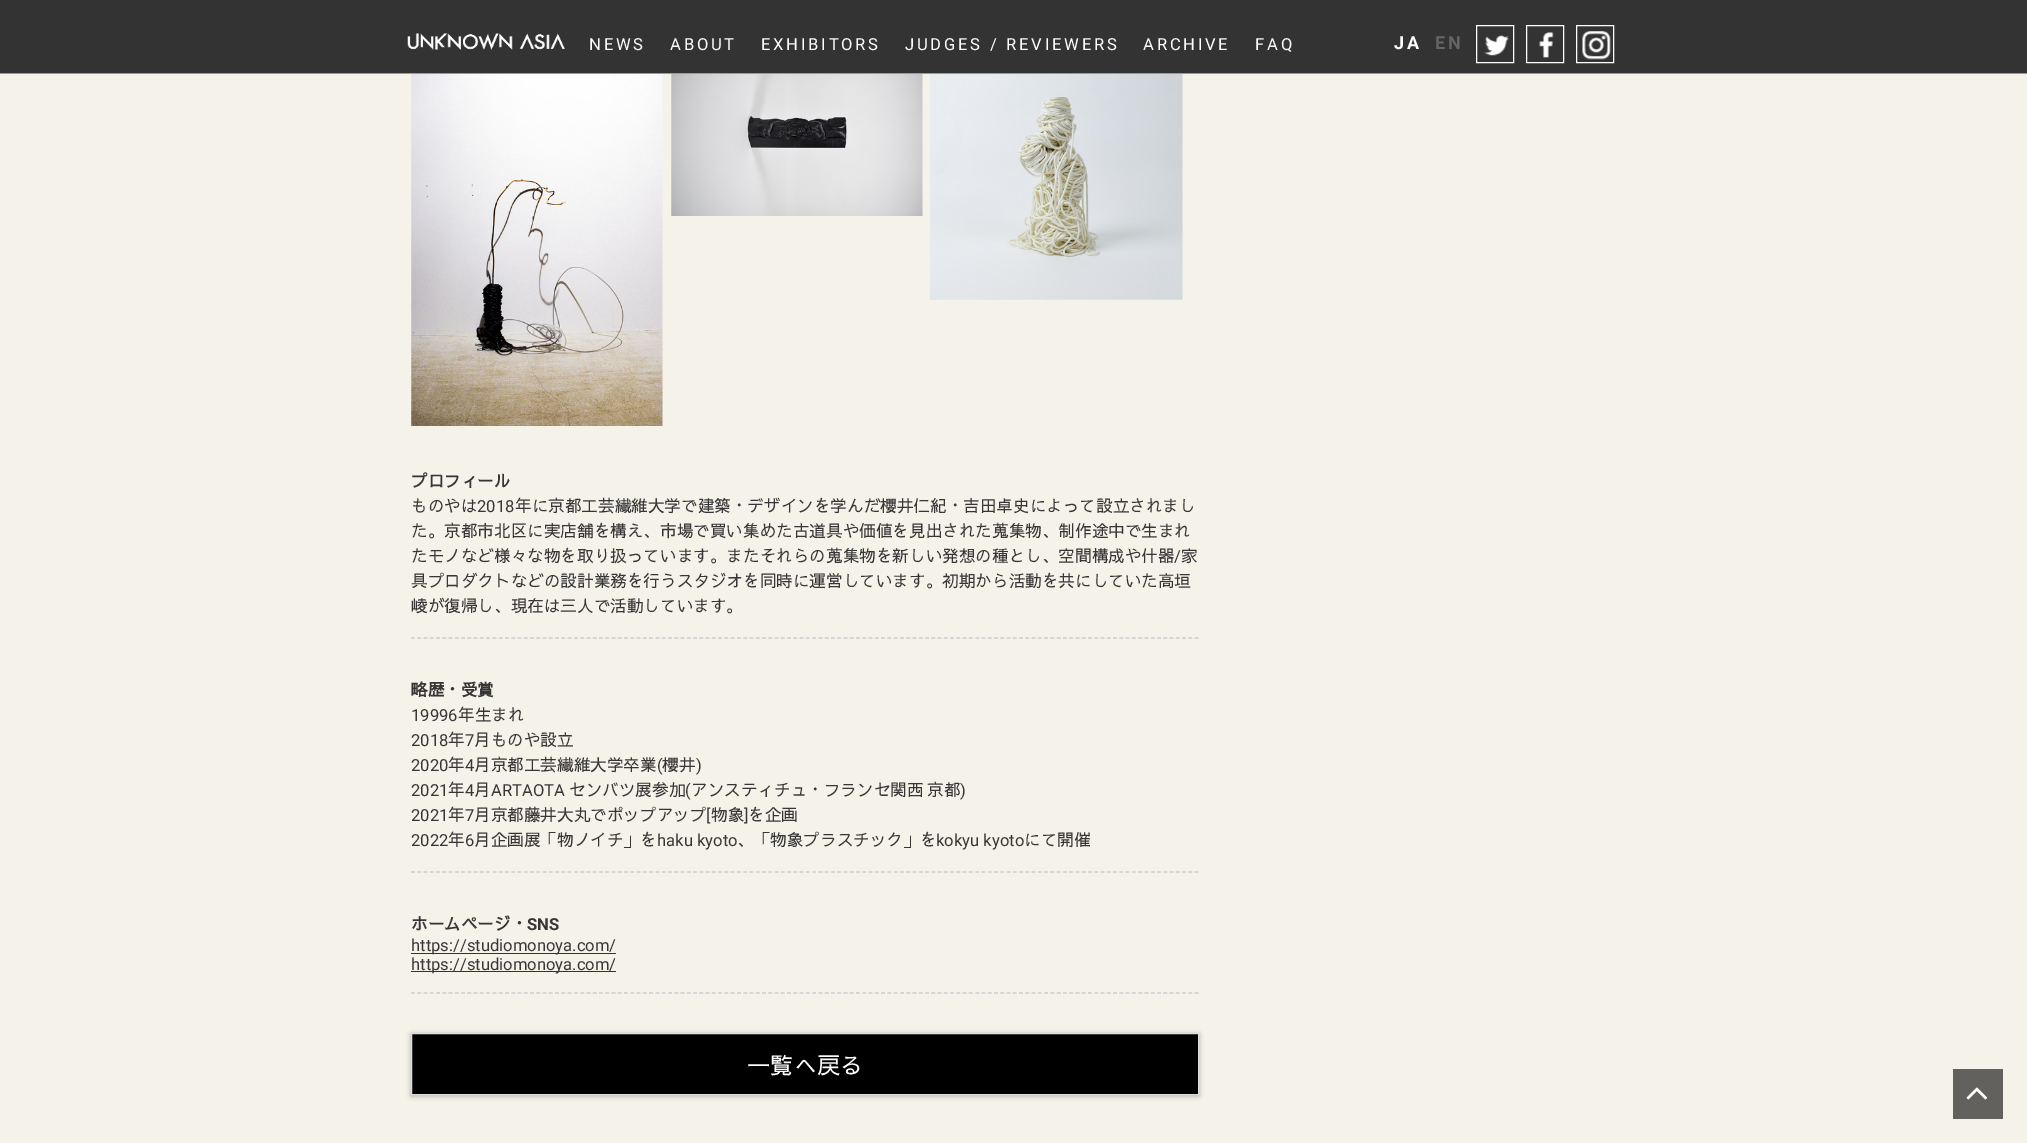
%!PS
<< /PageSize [2027 1143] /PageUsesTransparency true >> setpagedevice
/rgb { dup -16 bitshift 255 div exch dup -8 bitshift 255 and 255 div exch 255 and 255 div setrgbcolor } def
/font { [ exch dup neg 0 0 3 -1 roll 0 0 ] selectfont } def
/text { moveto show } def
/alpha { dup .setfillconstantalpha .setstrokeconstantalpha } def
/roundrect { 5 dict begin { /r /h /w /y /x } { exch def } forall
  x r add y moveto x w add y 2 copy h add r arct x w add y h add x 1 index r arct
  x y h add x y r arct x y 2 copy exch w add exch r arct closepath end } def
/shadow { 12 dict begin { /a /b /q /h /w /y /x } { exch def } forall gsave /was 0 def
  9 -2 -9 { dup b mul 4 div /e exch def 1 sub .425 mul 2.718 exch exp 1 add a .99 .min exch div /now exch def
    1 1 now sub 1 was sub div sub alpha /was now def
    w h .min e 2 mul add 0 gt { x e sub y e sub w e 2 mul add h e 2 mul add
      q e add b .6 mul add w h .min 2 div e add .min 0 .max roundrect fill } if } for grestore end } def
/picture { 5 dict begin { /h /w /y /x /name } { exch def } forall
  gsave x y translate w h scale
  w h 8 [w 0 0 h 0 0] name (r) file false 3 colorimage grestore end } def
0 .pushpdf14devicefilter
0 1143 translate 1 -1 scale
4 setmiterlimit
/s1 { /SawarabiGothic-Bold 16.6 font 16#363636 rgb } def
/s2 { /SawarabiGothic-Regular 16.6 font 16#363636 rgb } def
/s3 { /Roboto-Regular 16.6 font 16#363636 rgb } def
/s4 { /Roboto-Bold 16.6 font 16#363636 rgb } def
/s5 { /SawarabiGothic-Regular 23.25 font 16#FFFFFF rgb } def
16#F5F2E9 rgb
0 0 2027 1143 rectfill
16#333333 rgb
0 0 2027 73 rectfill
16#999999 rgb
0 73 2027 1 rectfill
(pic1.raw) 407 33 158 17 picture
/Roboto-Regular 16.6 font
16#FFFFFF rgb
589 50 moveto 2.75 0 (NEWS) ashow
670 50 moveto 2.75 0 (ABOUT) ashow
761 50 moveto 2.75 0 (EXHIBITORS) ashow
905 50 moveto 2.75 0 (JUDGES / REVIEWERS) ashow
1143 50 moveto 2.75 0 (ARCHIVE) ashow
1255 50 moveto 2.75 0 (FAQ) ashow
/Roboto-Bold 18 font
1394 49 moveto 2.75 0 (JA) ashow
16#666666 rgb
1435 49 moveto 2.75 0 (EN) ashow
16#FFFFFF rgb
1476.5 25.5 37 37 rectstroke
(pic2.raw) 1484 35 25 21 picture
1526.5 25.5 37 37 rectstroke
(pic3.raw) 1539 32 15 26 picture
1576.5 25.5 37 37 rectstroke
(pic4.raw) 1582 31 29 29 picture
(pic5.raw) 411 74 252 352 picture
(pic6.raw) 671 74 252 142 picture
(pic7.raw) 930 74 253 226 picture
s1
(プロフィール) 411 487 text
16#CCCCCC rgb
1.2 setlinewidth
[3.75 2.52] 0 setdash
411 638 moveto 1199 638 lineto stroke
s2
(ものやは) 411 512 text
s3
(2018) 477 512 text
s2
(年に京都工芸繊維大学で建築・デザインを学んだ櫻井仁紀・吉田卓史によって設立されまし) 515 512 text
(た。京都市北区に実店舗を構え、市場で買い集めた古道具や価値を見出された蒐集物、制作途中で生まれ) 411 537 text
(たモノなど様々な物を取り扱っています。またそれらの蒐集物を新しい発想の種とし、空間構成や什器) 411 562 text
s3
(/) 1174 562 text
s2
(家) 1181 562 text
(具プロダクトなどの設計業務を行うスタジオを同時に運営しています。初期から活動を共にしていた高垣) 411 587 text
(崚が復帰し、現在は三人で活動しています。) 411 612 text
s1
(略歴・受賞) 411 696 text
16#CCCCCC rgb
411 872 moveto 1199 872 lineto stroke
s3
(19996) 411 721 text
s2
(年生まれ) 458 721 text
s3
(2018) 411 746 text
s2
(年) 448 746 text
s3
(7) 465 746 text
s2
(月ものや設立) 474 746 text
s3
(2020) 411 771 text
s2
(年) 448 771 text
s3
(4) 465 771 text
s2
(月京都工芸繊維大学卒業) 474 771 text
s3
(\() 657 771 text
s2
(櫻井) 662 771 text
s3
(\)) 696 771 text
(2021) 411 796 text
s2
(年) 448 796 text
s3
(4) 465 796 text
s2
(月) 474 796 text
s3
(ARTAOTA) 491 796 text
s2
(センバツ展参加) 569 796 text
s3
(\() 685 796 text
/SawarabiGothic-Regular 16.6 font
691 796 moveto -1 0 32 (アンスティチュ・フランセ関西 京都) widthshow
s3
(\)) 960 796 text
(2021) 411 821 text
s2
(年) 448 821 text
s3
(7) 465 821 text
s2
(月京都藤井大丸でポップアップ) 474 821 text
s3
([) 706 821 text
s2
(物象) 711 821 text
s3
(]) 744 821 text
s2
(を企画) 748 821 text
s3
(2022) 411 846 text
s2
(年) 448 846 text
s3
(6) 465 846 text
s2
(月企画展「物ノイチ」を) 474 846 text
s3
(haku kyoto) 657 846 text
s2
(、「物象プラスチック」を) 737 846 text
s3
(kokyu kyoto) 936 846 text
s2
(にて開催) 1024 846 text
s1
(ホームページ・) 411 930 text
s4
(SNS) 527 930 text
16#CCCCCC rgb
411 993 moveto 1199 993 lineto stroke
16#333333 rgb
411 953 205 1 rectfill
s3
(https://studiomonoya.com/) 411 951 text
16#333333 rgb
411 971 205 1 rectfill
s3
(https://studiomonoya.com/) 411 970 text
16#000000 rgb
411 1034 788 62 0 2.5 0.3 shadow
411.5 1033.5 moveto 1198.5 1033.5 lineto 1198.5 1094.5 lineto 411.5 1094.5 lineto closepath gsave fill grestore
16#DEDEDE rgb
1 setlinewidth
[] 0 setdash
stroke
s5
(一覧へ戻る) 747 1074 text
16#62615D rgb
1953 1069 50 50 rectfill
(pic8.raw) 1966 1087 22 13 picture
.poppdf14devicefilter showpage
